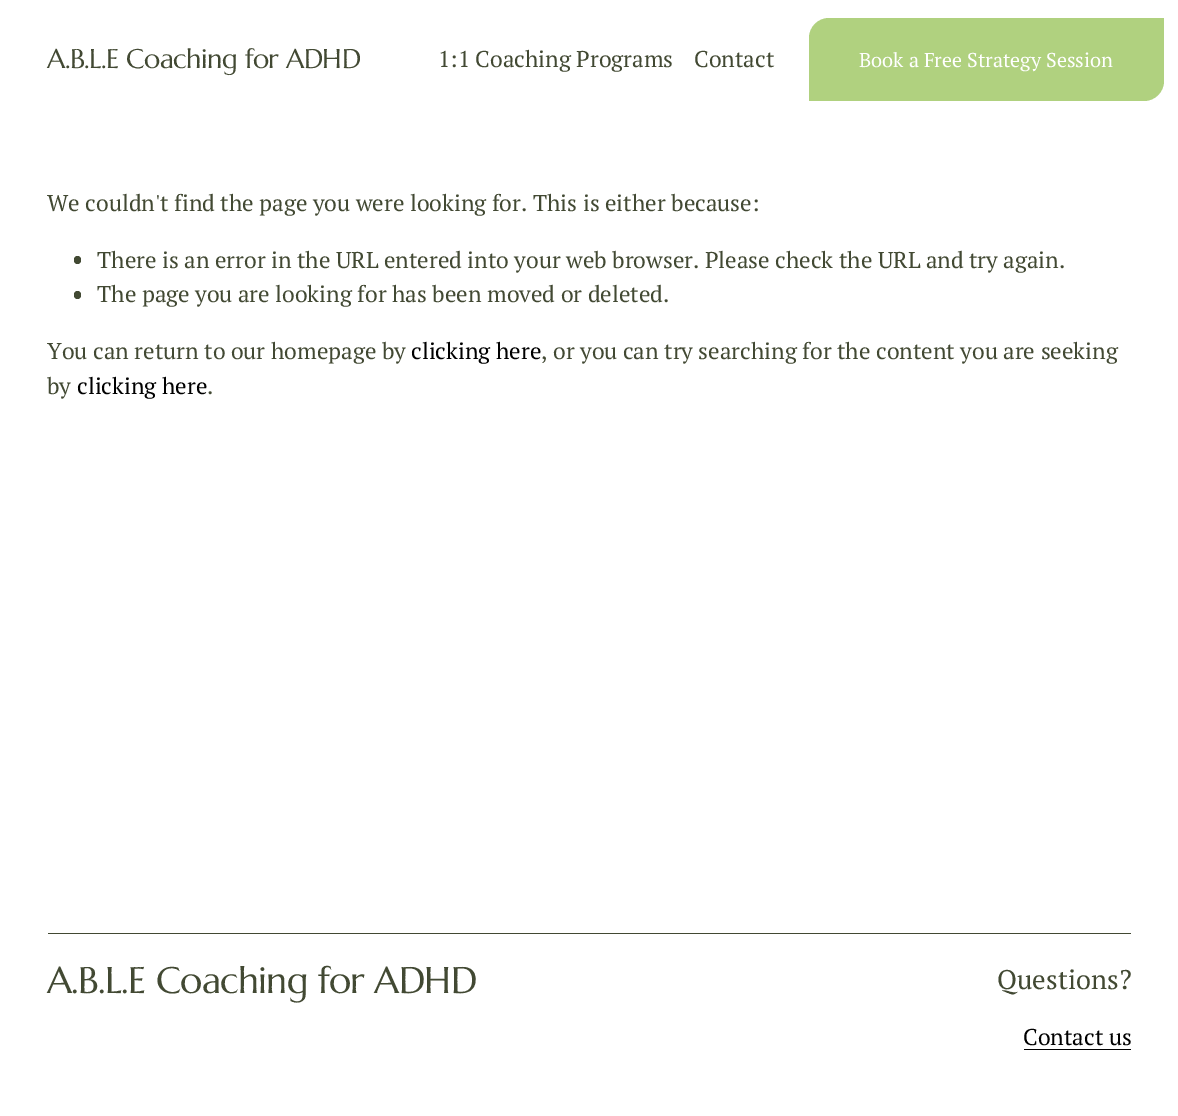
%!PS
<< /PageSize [1178 1116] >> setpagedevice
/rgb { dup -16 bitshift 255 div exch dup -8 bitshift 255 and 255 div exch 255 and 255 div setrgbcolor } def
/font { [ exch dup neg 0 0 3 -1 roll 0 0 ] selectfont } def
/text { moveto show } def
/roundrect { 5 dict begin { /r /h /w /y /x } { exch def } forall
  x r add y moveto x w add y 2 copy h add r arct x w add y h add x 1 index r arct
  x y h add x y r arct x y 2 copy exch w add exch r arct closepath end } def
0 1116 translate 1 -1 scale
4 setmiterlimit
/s1 { /PTSerif-Regular 22.85 font 16#424933 rgb } def
/s2 { /PTSerif-Regular 20 font 16#FFFFFF rgb } def
/s3 { /PTSerif-Regular 22.85 font 16#000000 rgb } def
/s4 { /PTSerif-Regular 27 font 16#424933 rgb } def
16#FFFFFF rgb
0 0 1178 1116 rectfill
/Marcellus-Regular 27 font
16#424933 rgb
47 68 moveto -0.55 0 (A.B.L.E Coaching for ADHD) ashow
s1
(1:1 Coaching Programs) 438 67 text
(Contact) 694 67 text
16#B0D17F rgb
829 18 moveto 1164 18 lineto 1164 81 lineto 1164 92 1155 101 1144 101 curveto 809 101 lineto 809 38 lineto 809 27 818 18 829 18 curveto closepath fill
s2
(Book a Free Strategy Session) 859 67 text
s1
(We couldn't find the page you were looking for. This is either because:) 47 211 text
74 256 7 8 3.5 roundrect fill
(There is an error in the URL entered into your web browser. Please check the URL and try again.) 97 268 text
74 291 7 8 3.5 roundrect fill
(The page you are looking for has been moved or deleted.) 97 302 text
(You can return to our homepage by) 47 359 text
s3
(clicking here) 411 359 text
s1
(, or you can try searching for the content you are seeking) 541 359 text
(by) 47 394 text
s3
(clicking here) 77 394 text
s1
(.) 207 394 text
48 933 1083 1 rectfill
/Marcellus-Regular 37 font
47 993 moveto -0.75 0 (A.B.L.E Coaching for ADHD) ashow
s4
(Questions?) 997 989 text
s3
(Contact us) 1023 1045 text
1024 1049 107 1 rectfill
showpage
